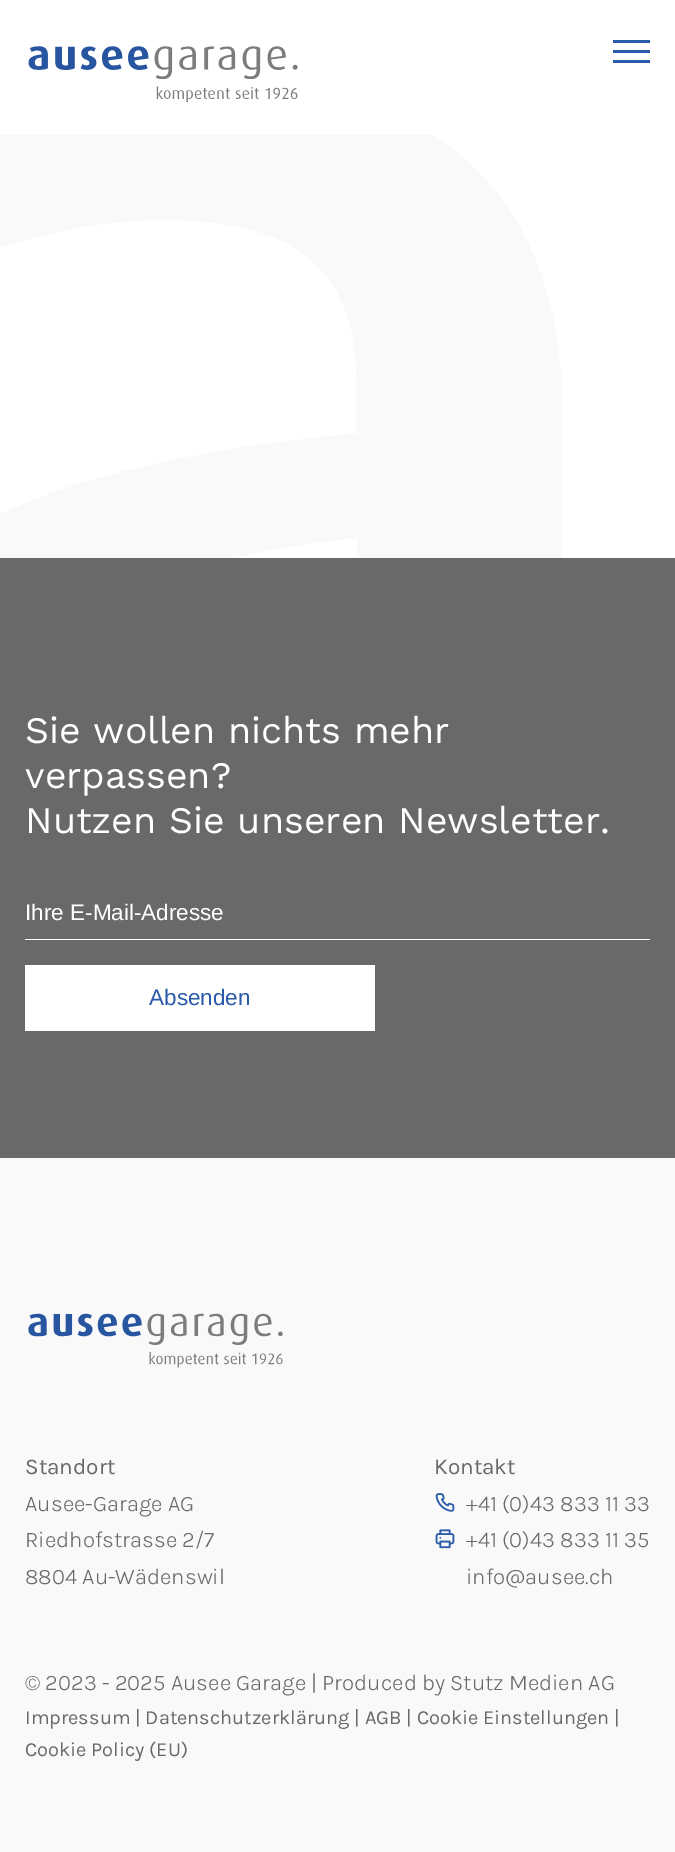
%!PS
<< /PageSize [675 1852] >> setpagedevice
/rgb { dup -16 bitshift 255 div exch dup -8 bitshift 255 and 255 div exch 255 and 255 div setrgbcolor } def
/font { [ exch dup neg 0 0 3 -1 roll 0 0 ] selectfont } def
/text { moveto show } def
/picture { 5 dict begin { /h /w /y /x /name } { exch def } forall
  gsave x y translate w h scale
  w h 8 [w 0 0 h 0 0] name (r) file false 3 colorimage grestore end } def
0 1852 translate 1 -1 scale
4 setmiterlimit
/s1 { /WorkSans-Regular 37.5 font 16#FFFFFF rgb } def
/s2 { /LiberationSans-Regular 22.5 font 16#FFFFFF rgb } def
/s3 { /LiberationSans-Regular 22.5 font 16#2A5BAA rgb } def
/s4 { /Karla-Regular 22.5 font 16#696969 rgb } def
/s5 { /Karla-Light 22.5 font 16#696969 rgb } def
/s6 { /Karla-Regular 20 font 16#696969 rgb } def
16#FFFFFF rgb
0 0 675 1852 rectfill
(pic1.raw) 0 135 562 423 picture
(pic2.raw) 28 46 270 57 picture
16#2A5BAA rgb
613 40 37 3 rectfill
613 50 37 3 rectfill
613 60 37 3 rectfill
16#696969 rgb
0 558 675 600 rectfill
s1
(Sie wollen nichts mehr) 25 743 text
(verpassen?) 25 788 text
(Nutzen Sie unseren Newsletter.) 25 833 text
25 939 625 1 rectfill
s2
(Ihre E-Mail-Adresse) 25 920 text
25 965 350 66 rectfill
s3
(Absenden) 149 1005 text
16#F9F9F9 rgb
0 1158 675 694 rectfill
(pic3.raw) 28 1313 255 55 picture
s4
(Standort) 25 1474 text
s5
(Ausee-Garage AG) 25 1511 text
(Riedhofstrasse 2/7) 25 1547 text
(8804 Au-Wädenswil) 25 1584 text
s4
(Kontakt) 434 1474 text
(pic4.raw) 435 1493 20 19 picture
s5
(+41 \(0\)43 833 11 33) 466 1511 text
(pic5.raw) 435 1529 20 20 picture
(+41 \(0\)43 833 11 35) 466 1547 text
(info@ausee.ch) 466 1584 text
(© 2023 - 2025 Ausee Garage | Produced by Stutz Medien AG) 25 1690 text
s6
(Impressum | Datenschutzerklärung | AGB | Cookie Einstellungen |) 25 1724 text
(Cookie Policy \(EU\)) 25 1756 text
showpage
